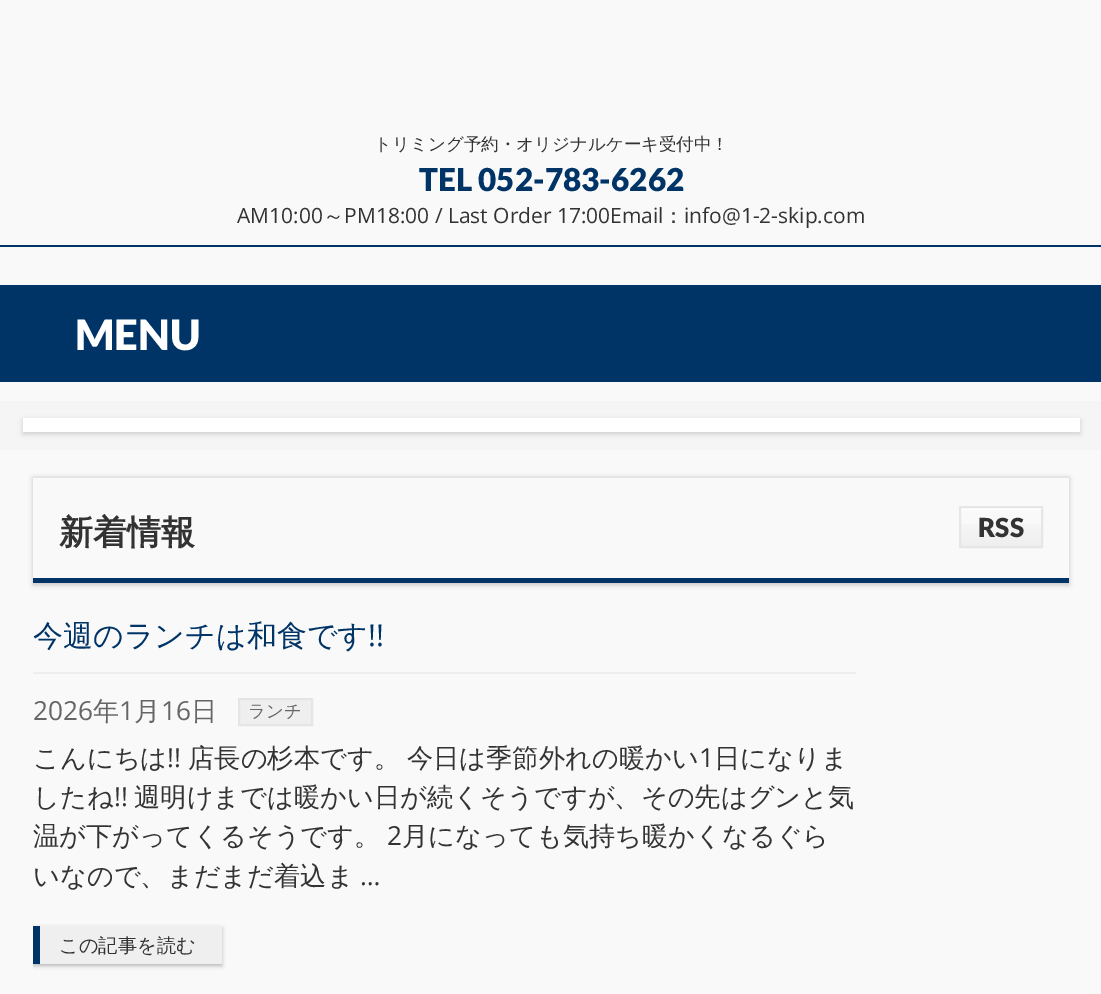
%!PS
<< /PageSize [1101 994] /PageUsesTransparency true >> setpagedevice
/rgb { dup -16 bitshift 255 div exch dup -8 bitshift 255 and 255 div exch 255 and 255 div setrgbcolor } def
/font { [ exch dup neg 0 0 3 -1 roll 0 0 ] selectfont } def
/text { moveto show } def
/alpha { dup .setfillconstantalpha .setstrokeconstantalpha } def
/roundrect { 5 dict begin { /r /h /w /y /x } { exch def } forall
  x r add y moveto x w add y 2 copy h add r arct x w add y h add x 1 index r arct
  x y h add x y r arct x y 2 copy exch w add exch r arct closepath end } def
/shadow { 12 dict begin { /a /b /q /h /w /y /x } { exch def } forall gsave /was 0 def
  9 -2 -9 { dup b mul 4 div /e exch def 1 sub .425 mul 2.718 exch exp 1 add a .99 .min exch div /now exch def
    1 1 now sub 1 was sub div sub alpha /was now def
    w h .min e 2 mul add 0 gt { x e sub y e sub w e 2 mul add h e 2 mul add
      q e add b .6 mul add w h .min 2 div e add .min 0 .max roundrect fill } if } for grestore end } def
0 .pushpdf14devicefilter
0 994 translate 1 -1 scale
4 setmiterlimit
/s1 { /WenQuanYiZenHei-Medium 17.5 font 16#333333 rgb } def
/s2 { /Lato-Black 31.5 font 16#003366 rgb } def
/s3 { /OpenSans-Regular 21 font 16#333333 rgb } def
/s4 { /WenQuanYiZenHei-Medium 21 font 16#333333 rgb } def
/s5 { /Lato-Black 42 font 16#FFFFFF rgb } def
/s6 { /WenQuanYiZenHei-Bold 34 font 16#333333 rgb } def
/s7 { /Lato-Black 26.25 font 16#333333 rgb } def
/s8 { /WenQuanYiZenHei-Medium 30 font 16#003366 rgb } def
/s9 { /OpenSans-Regular 30 font 16#003366 rgb } def
/s10 { /OpenSans-Regular 26.25 font 16#666666 rgb } def
/s11 { /WenQuanYiZenHei-Medium 26.25 font 16#666666 rgb } def
/s12 { /WenQuanYiZenHei-Medium 17.5 font 16#666666 rgb } def
/s13 { /WenQuanYiZenHei-Medium 26.25 font 16#333333 rgb } def
/s14 { /OpenSans-Regular 26.25 font 16#333333 rgb } def
/s15 { /WenQuanYiZenHei-Medium 19.25 font 16#333333 rgb } def
16#F9F9F9 rgb
0 0 1101 994 rectfill
s1
(トリミング予約・オリジナルケーキ受付中！) 374 150 text
s2
(TEL 052-783-6262) 419 191 text
s3
(AM10:00) 237 223 text
s4
(～) 323 223 text
s3
(PM18:00 / Last Order 17:00Email) 344 223 text
s4
(：) 663 223 text
s3
(info@1-2-skip.com) 684 223 text
16#003366 rgb
0 245 1101 2 rectfill
0 285 1101 97 rectfill
s5
(MENU) 75 350 text
16#F5F5F5 rgb
0 401 1101 49 rectfill
16#000000 rgb
23 420 1057 14 0 2.5 0.15 shadow
16#FFFFFF rgb
23 418 1057 14 rectfill
gsave
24 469 moveto 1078 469 lineto 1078 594 lineto 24 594 lineto closepath 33 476 moveto 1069 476 lineto 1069 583 lineto 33 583 lineto closepath eoclip newpath
16#000000 rgb
33 478 1036 107 0 2.5 0.2 shadow
grestore
16#E5E5E5 rgb
33 476 1036 2 rectfill
16#003366 rgb
33 578 1036 5 rectfill
s6
(新着情報) 59 544 text
gsave 961 524 moveto 1041 524 lineto 1041 546 lineto 961 546 lineto closepath clip newpath
<< /ShadingType 2 /ColorSpace /DeviceRGB /Coords [1001 508 1001 546] /Extend [true true] /Function << /FunctionType 2 /Domain [0 1] /C0 [0.988 0.988 0.988] /C1 [0.937 0.937 0.937] /N 1 >> >> shfill grestore
16#FFFFFF rgb
961 508 80 2 rectfill
16#E6E6E6 rgb
2 setlinewidth
960 507 82 40 rectstroke
s7
(RSS) 978 537 text
16#EEEEEE rgb
33 672 823 2 rectfill
s8
(今週のランチは和食です) 33 646 text
s9
(!!) 368 646 text
s10
(2026) 33 720 text
s11
(年) 93 720 text
s10
(1) 119 720 text
s11
(月) 134 720 text
s10
(16) 161 720 text
s11
(日) 191 720 text
16#EFEFEF rgb
239 699 moveto 312 699 lineto 312 725 lineto 239 725 lineto closepath gsave fill grestore
16#E5E5E5 rgb
stroke
s12
(ランチ) 248 717 text
s13
(こんにちは) 33 767 text
s14
(!!) 167 767 text
/WenQuanYiZenHei-Medium 26.25 font
188 767 moveto -1 0 32 (店長の杉本です。 今日は季節外れの暖かい) widthshow
s14
(1) 699 767 text
s13
(日になりま) 714 767 text
(したね) 33 806 text
s14
(!!) 114 806 text
s13
(週明けまでは暖かい日が続くそうですが、その先はグンと気) 134 806 text
(温が下がってくるそうです。) 33 845 text
s14
(2) 387 845 text
s13
(月になっても気持ち暖かくなるぐら) 402 845 text
(いなので、まだまだ着込ま) 33 885 text
s14
(…) 360 885 text
gsave
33 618 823 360 rectclip
16#000000 rgb
33 928 189 38 0 2 0.25 shadow
grestore
16#EFEFEF rgb
40 926 182 38 rectfill
16#003366 rgb
33 926 7 38 rectfill
s15
(この記事を読む) 59 952 text
.poppdf14devicefilter showpage
